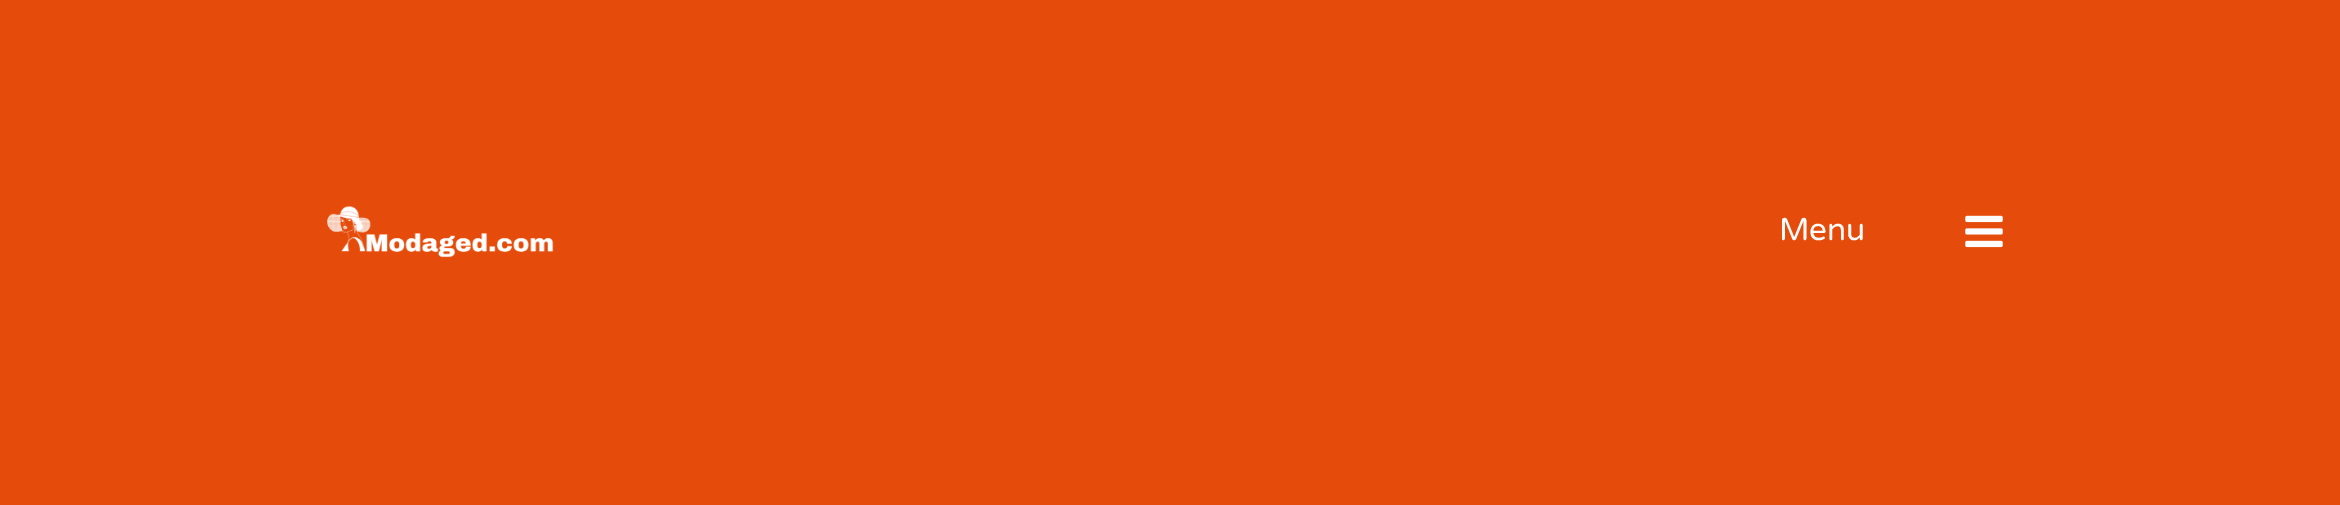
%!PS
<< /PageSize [2340 505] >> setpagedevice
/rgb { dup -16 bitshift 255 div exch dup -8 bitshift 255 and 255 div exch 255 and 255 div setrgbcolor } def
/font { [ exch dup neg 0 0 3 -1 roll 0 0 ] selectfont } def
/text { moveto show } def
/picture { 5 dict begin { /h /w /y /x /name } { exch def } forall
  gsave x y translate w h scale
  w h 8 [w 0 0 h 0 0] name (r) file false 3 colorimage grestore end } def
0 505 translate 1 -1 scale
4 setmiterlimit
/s1 { /VarelaRound-Regular 31.5 font 16#FCFCFC rgb } def
16#E54C0B rgb
0 0 2340 505 rectfill
(pic1.raw) 327 206 227 52 picture
s1
(Menu) 1779 240 text
(pic2.raw) 1965 215 38 33 picture
showpage
